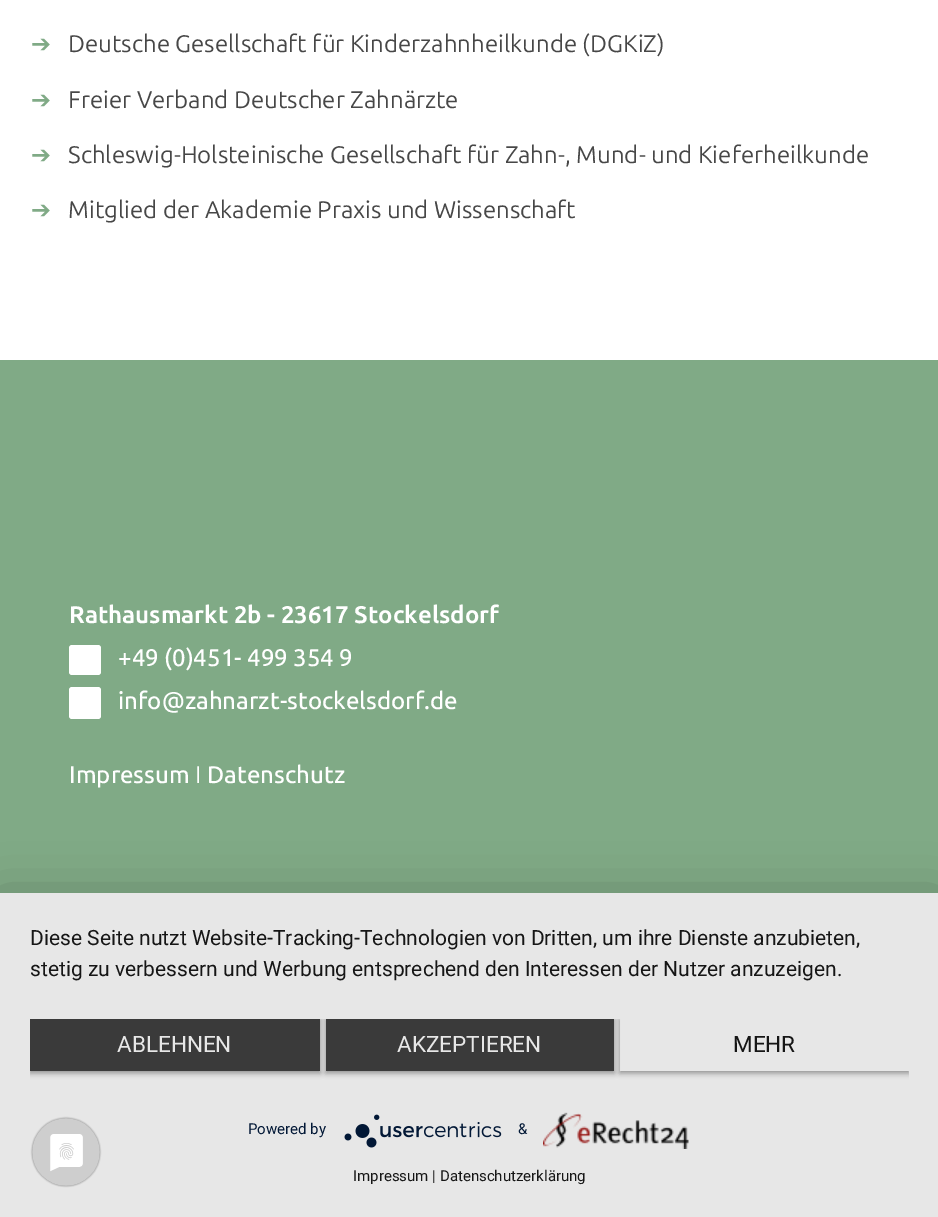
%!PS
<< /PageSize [938 1217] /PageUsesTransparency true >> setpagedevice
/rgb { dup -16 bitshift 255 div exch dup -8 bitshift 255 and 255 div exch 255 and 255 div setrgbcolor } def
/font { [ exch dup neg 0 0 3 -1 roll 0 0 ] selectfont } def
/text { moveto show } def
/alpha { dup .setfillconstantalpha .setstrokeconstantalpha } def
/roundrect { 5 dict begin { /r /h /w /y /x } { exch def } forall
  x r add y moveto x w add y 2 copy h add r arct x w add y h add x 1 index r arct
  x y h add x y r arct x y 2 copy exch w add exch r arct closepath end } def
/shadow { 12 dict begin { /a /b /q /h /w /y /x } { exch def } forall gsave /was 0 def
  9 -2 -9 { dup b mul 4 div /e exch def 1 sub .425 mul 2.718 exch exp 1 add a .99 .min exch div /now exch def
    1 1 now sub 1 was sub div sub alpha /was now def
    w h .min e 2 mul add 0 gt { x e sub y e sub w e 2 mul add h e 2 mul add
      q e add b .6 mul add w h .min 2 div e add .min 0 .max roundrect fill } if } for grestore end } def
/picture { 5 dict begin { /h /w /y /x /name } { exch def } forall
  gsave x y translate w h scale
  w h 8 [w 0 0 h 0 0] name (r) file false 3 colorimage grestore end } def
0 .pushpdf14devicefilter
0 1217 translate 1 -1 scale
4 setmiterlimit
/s1 { /DejaVuSans-Regular 24 font 16#80AA86 rgb } def
/s2 { /Ubuntu-Regular 24 font 16#474747 rgb } def
/s3 { /Ubuntu-Bold 24 font 16#FFFFFF rgb } def
/s4 { /Ubuntu-Medium 24 font 16#FFFFFF rgb } def
/s5 { /Ubuntu-Regular 24 font 16#FFFFFF rgb } def
/s6 { /Roboto-Regular 21 font 16#161616 rgb } def
/s7 { /Roboto-Regular 22.5 font 16#E7E7E7 rgb } def
/s8 { /Roboto-Regular 22.5 font 16#161616 rgb } def
/s9 { /Roboto-Regular 15 font 16#021836 rgb } def
/s10 { /Roboto-Regular 15 font 16#161616 rgb } def
16#FFFFFF rgb
0 0 938 1217 rectfill
s1
(➔) 31 52 text
s2
(Deutsche Gesellschaft für Kinderzahnheilkunde \(DGKiZ\)) 68 52 text
s1
(➔) 31 108 text
s2
(Freier Verband Deutscher Zahnärzte) 68 108 text
s1
(➔) 31 163 text
s2
(Schleswig-Holsteinische Gesellschaft für Zahn-, Mund- und Kieferheilkunde) 68 163 text
s1
(➔) 31 218 text
s2
(Mitglied der Akademie Praxis und Wissenschaft) 68 218 text
16#80AA86 rgb
0 360 938 533 rectfill
s3
(Rathausmarkt 2b - 23617 Stockelsdorf) 69 623 text
69 645 32 30 3 roundrect fill
s4
(+49 \(0\)451- 499 354 9) 118 666 text
69 687 32 32 3 roundrect fill
(info@zahnarzt-stockelsdorf.de) 118 709 text
(Impressum) 69 783 text
s5
(I) 195 783 text
s4
(Datenschutz) 207 783 text
16#000000 rgb
0 902 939 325 0 27 0.3 shadow
16#E7E7E7 rgb
0 893 938 324 rectfill
s6
(Diese Seite nutzt Website-Tracking-Technologien von Dritten, um ihre Dienste anzubieten,) 30 945 text
(stetig zu verbessern und Werbung entsprechend den Interessen der Nutzer anzuzeigen.) 30 976 text
gsave
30 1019 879 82 rectclip
16#000000 rgb
30 1020 290 53 0 3 0.4 shadow
grestore
16#3A3A3A rgb
30 1019 290 52 rectfill
s7
(ABLEHNEN) 117 1052 text
gsave
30 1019 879 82 rectclip
16#000000 rgb
326 1020 288 53 0 3 0.4 shadow
grestore
16#3A3A3A rgb
326 1019 288 52 rectfill
s7
(AKZEPTIEREN) 397 1052 text
gsave
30 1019 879 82 rectclip
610 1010 moveto 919 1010 lineto 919 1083 lineto 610 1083 lineto closepath 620 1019 moveto 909 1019 lineto 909 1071 lineto 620 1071 lineto closepath eoclip newpath
16#000000 rgb
620 1020 289 53 0 3 0.4 shadow
grestore
s8
(MEHR) 733 1052 text
s9
(Powered by) 248 1134 text
(pic1.raw) 344 1114 158 34 picture
(&) 518 1134 text
(pic2.raw) 543 1112 146 37 picture
s10
(Impressum | Datenschutzerklärung) 353 1181 text
(pic3.raw) 30 1116 72 72 picture
.poppdf14devicefilter showpage
